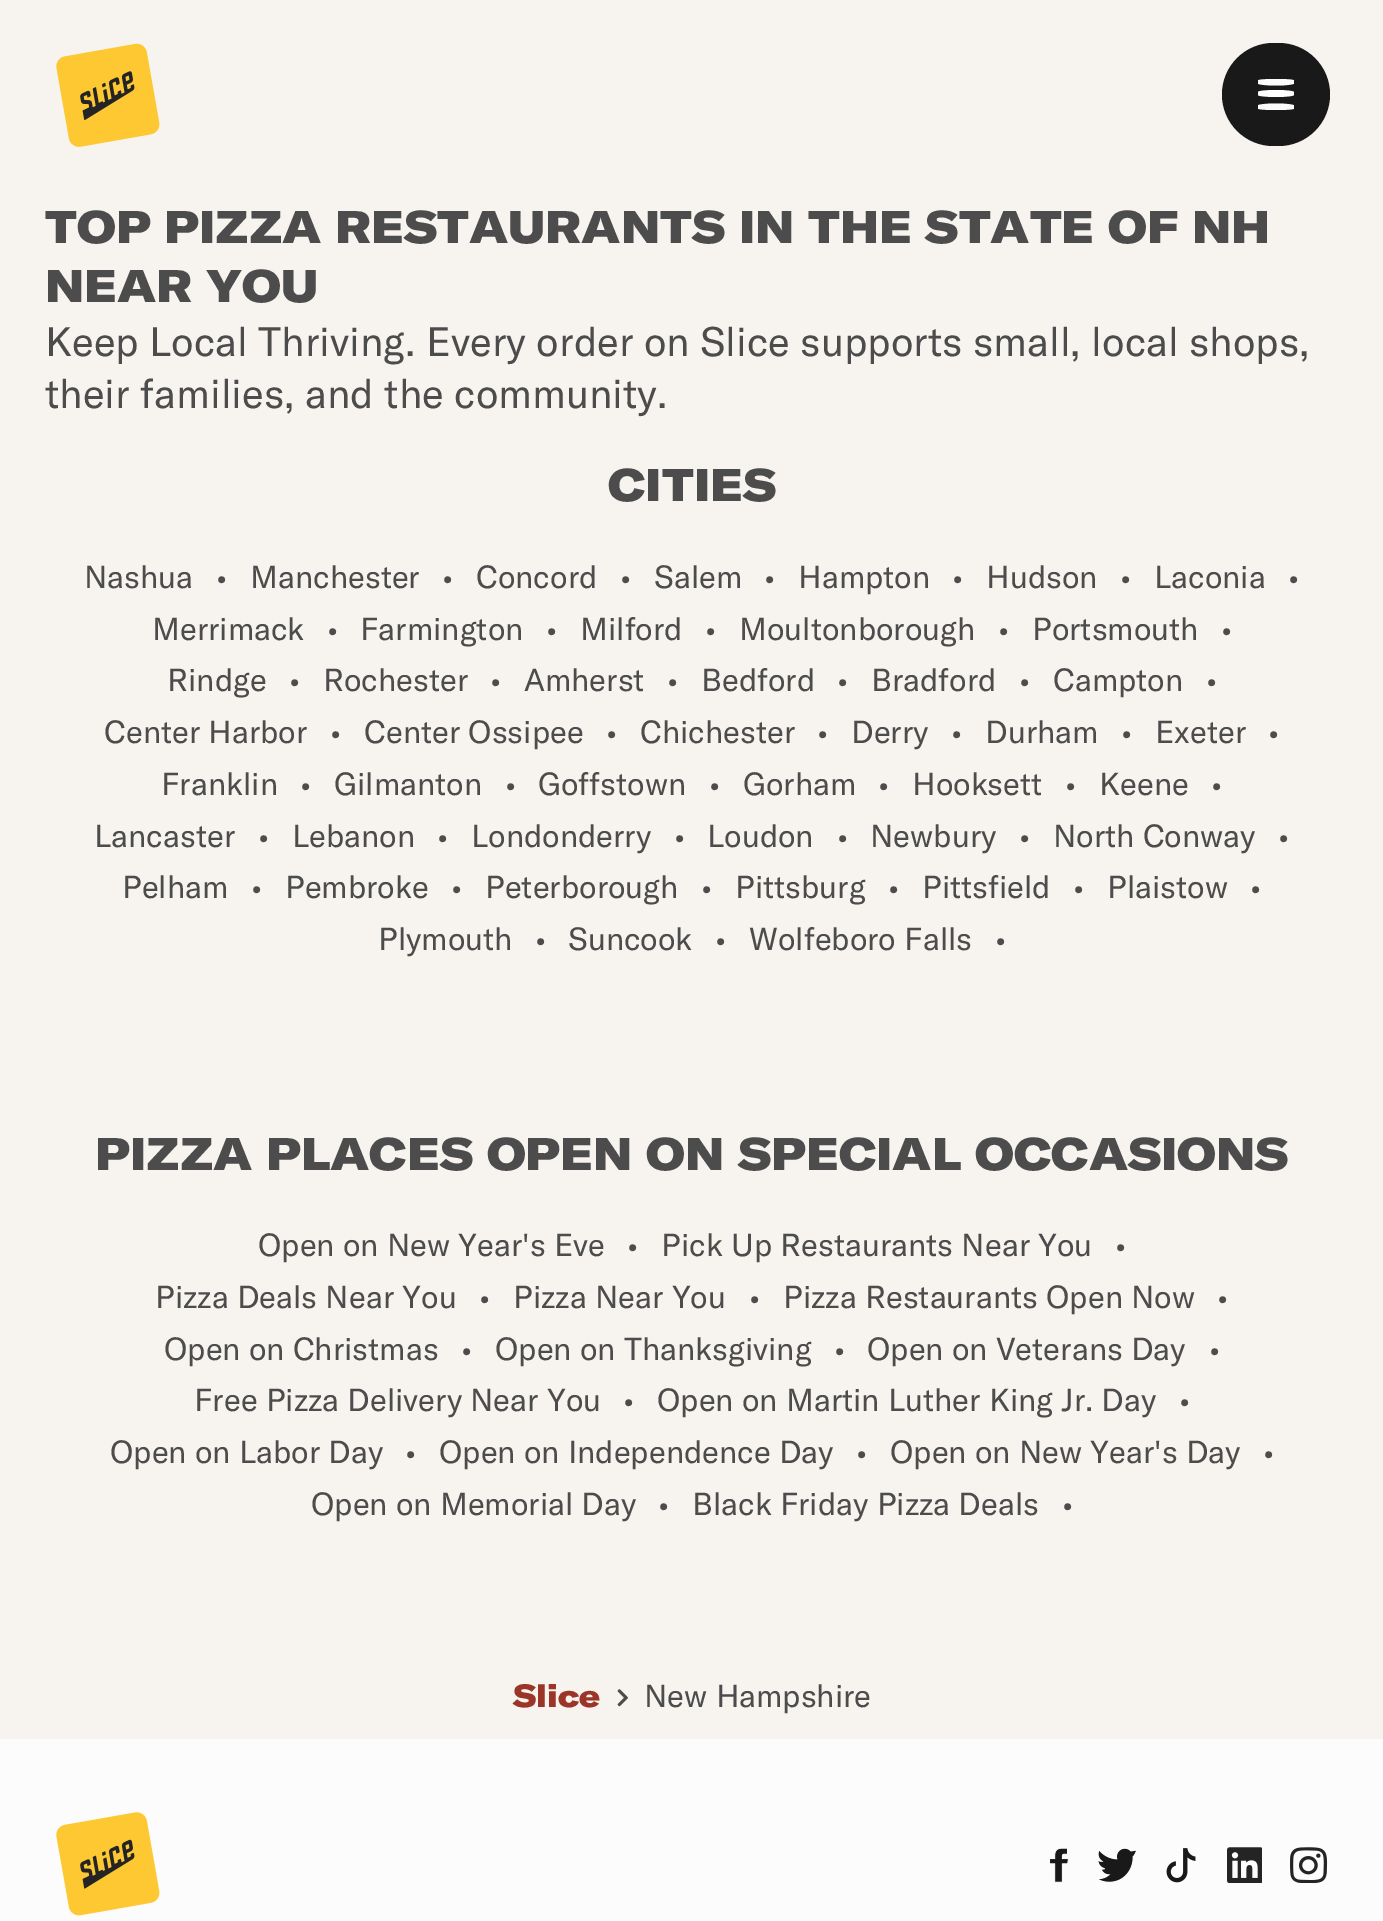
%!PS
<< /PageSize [1383 1921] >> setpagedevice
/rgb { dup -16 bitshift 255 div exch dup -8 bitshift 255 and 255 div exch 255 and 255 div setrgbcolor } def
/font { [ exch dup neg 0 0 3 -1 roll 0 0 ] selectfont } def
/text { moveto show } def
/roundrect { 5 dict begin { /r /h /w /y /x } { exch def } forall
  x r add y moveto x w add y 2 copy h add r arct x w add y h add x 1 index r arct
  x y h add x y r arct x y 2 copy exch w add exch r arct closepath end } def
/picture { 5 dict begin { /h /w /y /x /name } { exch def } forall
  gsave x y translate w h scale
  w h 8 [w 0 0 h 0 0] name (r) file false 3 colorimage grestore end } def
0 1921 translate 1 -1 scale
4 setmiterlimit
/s1 { /GTAmerica-Black 45 font 16#4C4C4C rgb } def
/s2 { /GTAmerica-Regular 40.5 font 16#4C4C4C rgb } def
/s3 { /GTAmerica-Regular 31.5 font 16#4C4C4C rgb } def
/s4 { /GTAmerica-Black 31.5 font 16#9B3527 rgb } def
16#F7F4EF rgb
0 0 1383 1921 rectfill
(pic1.raw) 56 43 104 104 picture
16#191919 rgb
1222 43 108 103 51.5 roundrect fill
16#FCFCFC rgb
1276 90 moveto 1285.5 90 1294 91 1294 92 curveto 1294 95 lineto 1294 96 1285.5 97 1276 97 curveto 1266 97 1258 96 1258 95 curveto 1258 92 lineto 1258 91 1266 90 1276 90 curveto closepath fill
1276 79 moveto 1285.5 79 1294 79.5 1294 80.5 curveto 1294 83.5 lineto 1294 84.5 1285.5 85.5 1276 85.5 curveto 1266 85.5 1258 84.5 1258 83.5 curveto 1258 80.5 lineto 1258 79.5 1266 79 1276 79 curveto closepath 1276 103.5 moveto 1285.5 103.5 1294 104.5 1294 105.5 curveto 1294 108.5 lineto 1294 109.5 1285.5 110 1276 110 curveto 1266 110 1258 109.5 1258 108.5 curveto 1258 105.5 lineto 1258 104.5 1266 103.5 1276 103.5 curveto closepath fill
s1
(TOP PIZZA RESTAURANTS IN THE STATE OF NH) 45 243 text
(NEAR YOU) 45 302 text
s2
(Keep Local Thriving. Every order on Slice supports small, local shops,) 45 356 text
(their families, and the community.) 45 408 text
s1
(CITIES) 608 501 text
s3
(Nashua) 84 588 text
(•) 216 588 text
(Manchester) 250 588 text
(•) 442 588 text
(Concord) 476 588 text
(•) 620 588 text
(Salem) 654 588 text
(•) 764 588 text
(Hampton) 798 588 text
(•) 952 588 text
(Hudson) 986 588 text
(•) 1120 588 text
(Laconia) 1154 588 text
(•) 1288 588 text
(Merrimack) 152 640 text
(•) 327 640 text
(Farmington) 360 640 text
(•) 546 640 text
(Milford) 580 640 text
(•) 705 640 text
(Moultonborough) 739 640 text
(•) 998 640 text
(Portsmouth) 1032 640 text
(•) 1221 640 text
(Rindge) 167 691 text
(•) 289 691 text
(Rochester) 323 691 text
(•) 490 691 text
(Amherst) 524 691 text
(•) 667 691 text
(Bedford) 701 691 text
(•) 837 691 text
(Bradford) 871 691 text
(•) 1019 691 text
(Campton) 1053 691 text
(•) 1206 691 text
(Center Harbor) 104 743 text
(•) 330 743 text
(Center Ossipee) 364 743 text
(•) 606 743 text
(Chichester) 640 743 text
(•) 817 743 text
(Derry) 851 743 text
(•) 951 743 text
(Durham) 985 743 text
(•) 1121 743 text
(Exeter) 1155 743 text
(•) 1268 743 text
(Franklin) 161 795 text
(•) 300 795 text
(Gilmanton) 334 795 text
(•) 505 795 text
(Goffstown) 538 795 text
(•) 709 795 text
(Gorham) 743 795 text
(•) 878 795 text
(Hooksett) 912 795 text
(•) 1065 795 text
(Keene) 1099 795 text
(•) 1211 795 text
(Lancaster) 94 847 text
(•) 258 847 text
(Lebanon) 292 847 text
(•) 437 847 text
(Londonderry) 471 847 text
(•) 674 847 text
(Loudon) 707 847 text
(•) 837 847 text
(Newbury) 870 847 text
(•) 1019 847 text
(North Conway) 1053 847 text
(•) 1278 847 text
(Pelham) 122 898 text
(•) 251 898 text
(Pembroke) 285 898 text
(•) 451 898 text
(Peterborough) 485 898 text
(•) 701 898 text
(Pittsburg) 735 898 text
(•) 888 898 text
(Pittsfield) 922 898 text
(•) 1073 898 text
(Plaistow) 1107 898 text
(•) 1250 898 text
(Plymouth) 378 950 text
(•) 535 950 text
(Suncook) 568 950 text
(•) 715 950 text
(Wolfeboro Falls) 749 950 text
(•) 995 950 text
s1
(PIZZA PLACES OPEN ON SPECIAL OCCASIONS) 95 1170 text
s3
(Open on New Year's Eve) 258 1256 text
(•) 627 1256 text
(Pick Up Restaurants Near You) 661 1256 text
(•) 1115 1256 text
(Pizza Deals Near You) 155 1308 text
(•) 479 1308 text
(Pizza Near You) 513 1308 text
(•) 749 1308 text
(Pizza Restaurants Open Now) 783 1308 text
(•) 1217 1308 text
(Open on Christmas) 164 1360 text
(•) 461 1360 text
(Open on Thanksgiving) 495 1360 text
(•) 834 1360 text
(Open on Veterans Day) 867 1360 text
(•) 1209 1360 text
(Free Pizza Delivery Near You) 194 1411 text
(•) 623 1411 text
(Open on Martin Luther King Jr. Day) 657 1411 text
(•) 1179 1411 text
(Open on Labor Day) 110 1463 text
(•) 405 1463 text
(Open on Independence Day) 439 1463 text
(•) 856 1463 text
(Open on New Year's Day) 890 1463 text
(•) 1263 1463 text
(Open on Memorial Day) 311 1515 text
(•) 658 1515 text
(Black Friday Pizza Deals) 692 1515 text
(•) 1062 1515 text
s4
(Slice) 513 1707 text
(pic2.raw) 617 1689 11 18 picture
s3
(New Hampshire) 644 1707 text
16#FCFCFC rgb
0 1739 1383 182 rectfill
(pic3.raw) 56 1812 104 104 picture
(pic4.raw) 1050 1848 19 35 picture
(pic5.raw) 1098 1848 38 35 picture
(pic6.raw) 1166 1848 30 35 picture
(pic7.raw) 1227 1847 35 36 picture
(pic8.raw) 1290 1847 38 36 picture
showpage
